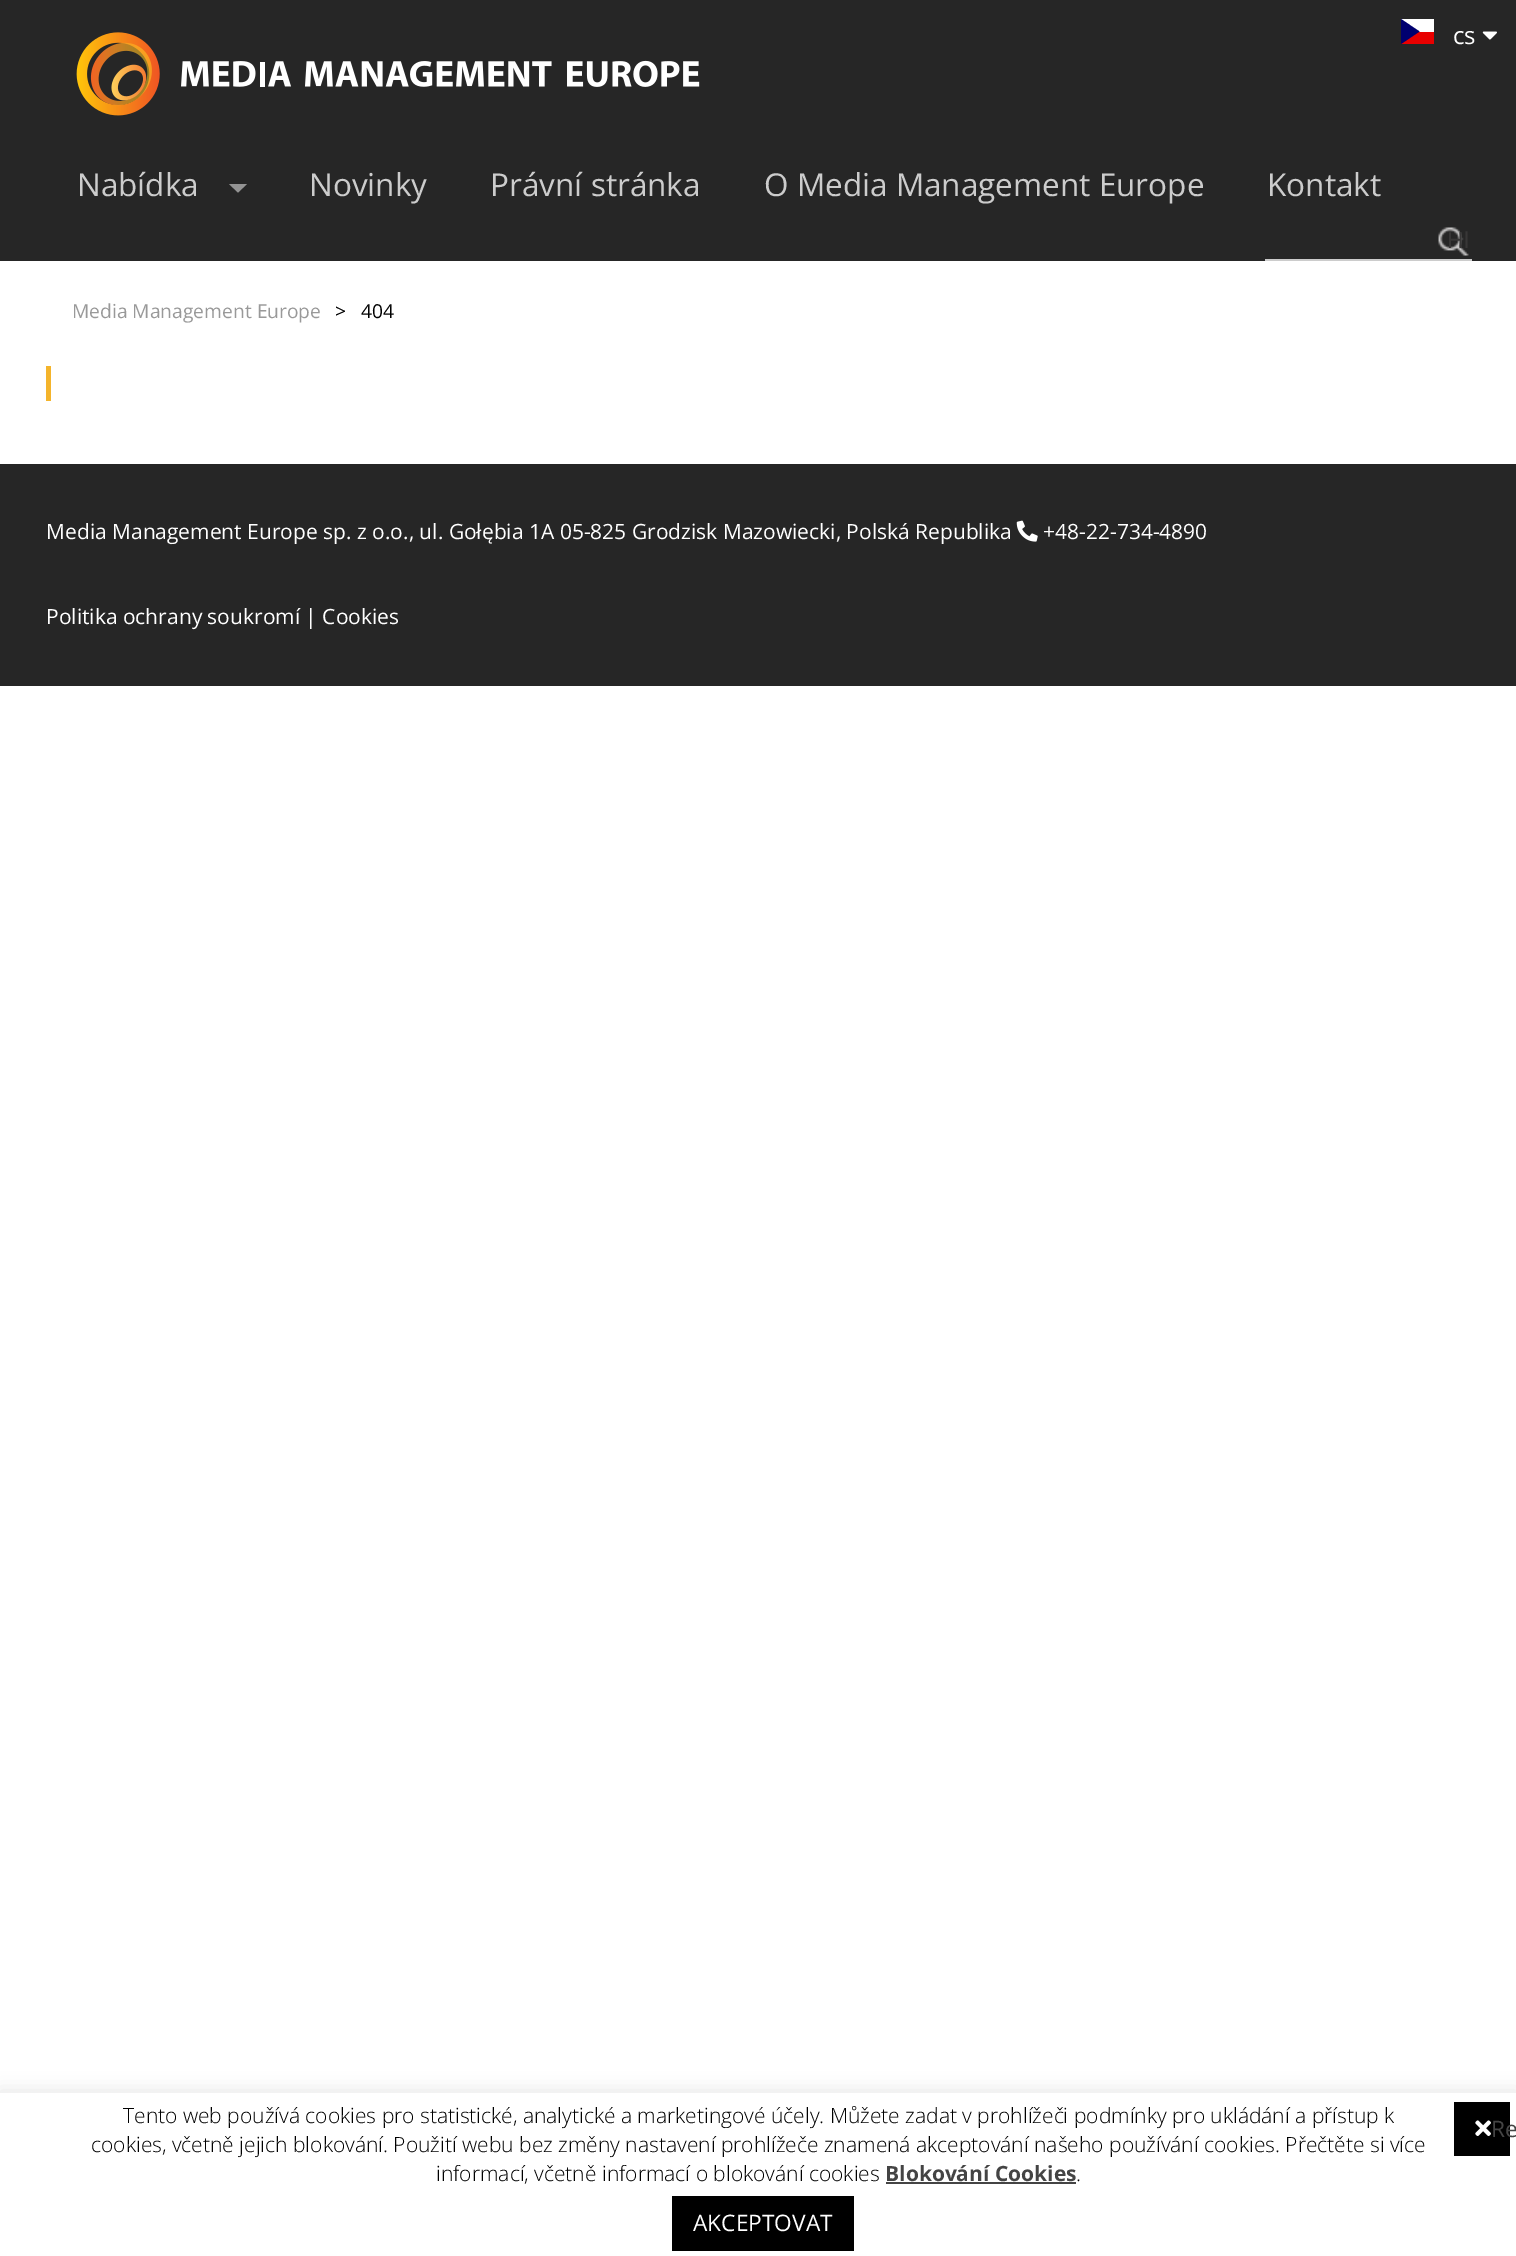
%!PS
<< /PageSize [1516 2256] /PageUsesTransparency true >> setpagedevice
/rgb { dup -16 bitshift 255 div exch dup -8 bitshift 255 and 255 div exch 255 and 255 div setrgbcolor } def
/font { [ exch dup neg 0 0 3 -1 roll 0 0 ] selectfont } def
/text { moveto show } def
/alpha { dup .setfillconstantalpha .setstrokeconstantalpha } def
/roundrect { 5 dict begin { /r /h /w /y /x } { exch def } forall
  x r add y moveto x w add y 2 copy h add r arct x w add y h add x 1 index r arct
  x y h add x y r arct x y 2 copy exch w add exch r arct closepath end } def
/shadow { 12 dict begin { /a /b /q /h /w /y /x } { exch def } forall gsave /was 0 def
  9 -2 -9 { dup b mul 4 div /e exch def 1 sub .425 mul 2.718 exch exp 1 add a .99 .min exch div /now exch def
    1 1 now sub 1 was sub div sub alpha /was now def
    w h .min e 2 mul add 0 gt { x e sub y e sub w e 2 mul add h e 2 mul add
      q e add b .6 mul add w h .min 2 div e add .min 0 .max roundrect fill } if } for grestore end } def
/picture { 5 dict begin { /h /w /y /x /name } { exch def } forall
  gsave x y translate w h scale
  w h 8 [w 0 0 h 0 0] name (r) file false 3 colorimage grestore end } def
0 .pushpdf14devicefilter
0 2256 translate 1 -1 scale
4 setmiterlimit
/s1 { /OpenSans-Regular 24 font 16#FFFFFF rgb } def
/s2 { /OpenSans-Regular 31.5 font 16#CCCCCC rgb } def
/s3 { /LiberationSans-Regular 23 font 16#383737 rgb } def
/s4 { /OpenSans-Regular 19.25 font 16#999999 rgb } def
/s5 { /OpenSans-Regular 19.25 font 16#000000 rgb } def
/s6 { /OpenSans-Regular 21 font 16#FFFFFF rgb } def
/s7 { /OpenSans-Light 21 font 16#000000 rgb } def
/s8 { /OpenSans-Regular 22.75 font 16#444444 rgb } def
/s9 { /OpenSans-Bold 21 font 16#444444 rgb } def
/s10 { /OpenSans-Regular 22.75 font 16#FFFFFF rgb } def
16#FFFFFF rgb
0 0 1516 2256 rectfill
16#262626 rgb
0 0 1516 261 rectfill
(pic1.raw) 76 32 624 84 picture
16#FFFFFF rgb
1401 19 33 13 rectfill
16#E80000 rgb
1401 32 33 12 rectfill
16#00006F rgb
1401 19 moveto 1419.5 31.5 lineto 1401 44 lineto closepath fill
s1
(cs) 1453 44 text
(pic2.raw) 1482 31 15 9 picture
s2
(Nabídka) 77 196 text
16#939393 rgb
229 184 moveto 247 184 lineto 238 192.5 lineto closepath fill
s2
(Novinky) 309 196 text
(Právní stránka) 490 196 text
(O Media Management Europe) 764 196 text
(Kontakt) 1267 196 text
1265 259 207 2 rectfill
(pic3.raw) 1438 227 31 29 picture
s3
(Hl) 1447 248 text
s4
(Media Management Europe) 72 318 text
s5
(>) 335 318 text
(404) 361 318 text
16#F4B42B rgb
46 366 5 35 rectfill
16#262626 rgb
0 464 1516 222 rectfill
s6
(Media Management Europe sp. z o.o., ul. Gołębia 1A 05-825 Grodzisk Mazowiecki, Polská Republika) 46 539 text
(pic4.raw) 1016 520 22 22 picture
(+48-22-734-4890) 1043 539 text
(Politika ochrany soukromí | Cookies) 46 624 text
16#ACABAB rgb
0 2091 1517 165 0 9 0.3 shadow
16#FFFFFF rgb
0 2093 1516 163 rectfill
s7
(Tento web používá cookies pro statistické, analytické a marketingové účely. Můžete zadat v prohlížeči podmínky pro ukládání a přístup k) 123 2123 text
1454 2102 56 54 rectfill
(pic5.raw) 1475 2120 16 16 picture
s8
(Re) 1491 2137 text
s7
(cookies, včetně jejich blokování. Použití webu bez změny nastavení prohlížeče znamená akceptování našeho používání cookies. Přečtěte si více) 91 2152 text
(informací, včetně informací o blokování cookies) 436 2181 text
s9
(Blokování Cookies) 885 2181 text
886 2182 190 2 rectfill
s7
(.) 1076 2181 text
672 2196 182 55 rectfill
s10
(AKCEPTOVAT) 693 2231 text
.poppdf14devicefilter showpage
